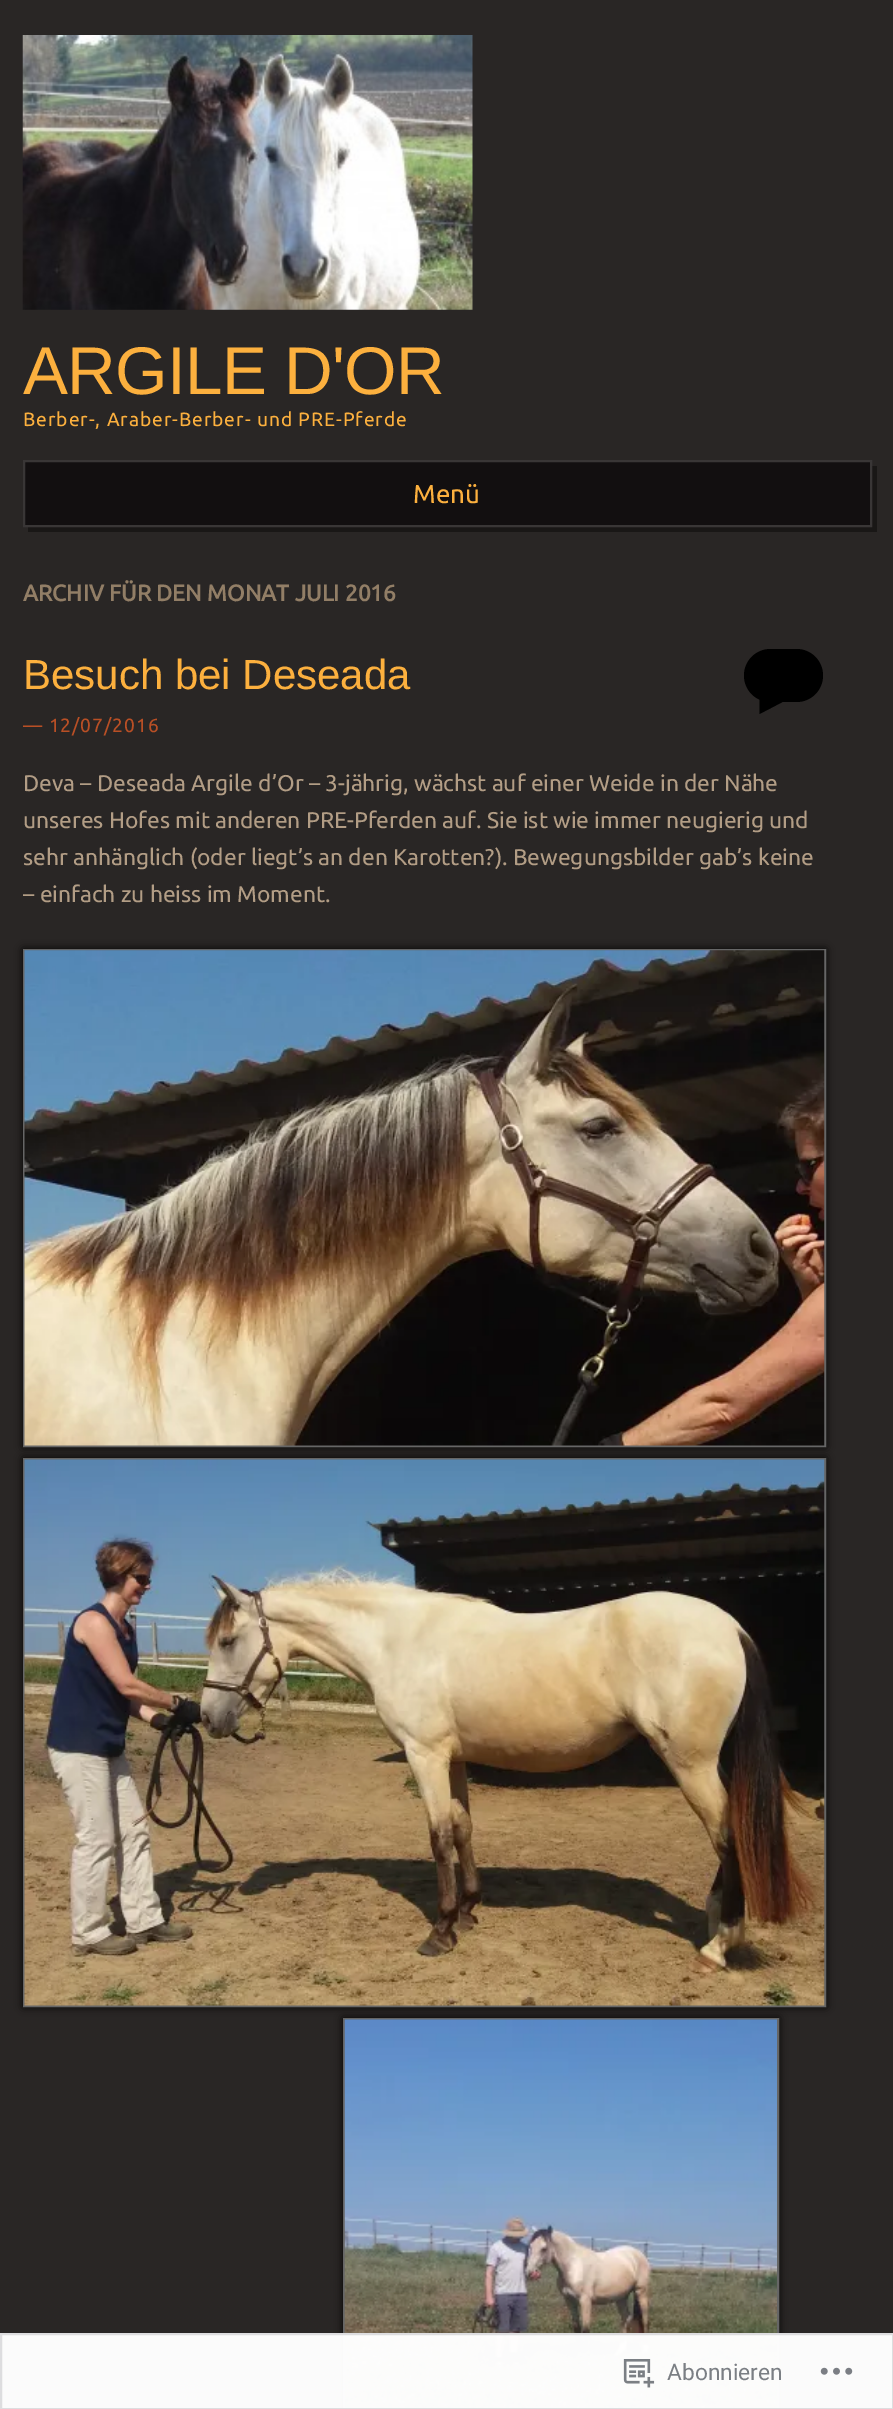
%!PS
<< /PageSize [893 2409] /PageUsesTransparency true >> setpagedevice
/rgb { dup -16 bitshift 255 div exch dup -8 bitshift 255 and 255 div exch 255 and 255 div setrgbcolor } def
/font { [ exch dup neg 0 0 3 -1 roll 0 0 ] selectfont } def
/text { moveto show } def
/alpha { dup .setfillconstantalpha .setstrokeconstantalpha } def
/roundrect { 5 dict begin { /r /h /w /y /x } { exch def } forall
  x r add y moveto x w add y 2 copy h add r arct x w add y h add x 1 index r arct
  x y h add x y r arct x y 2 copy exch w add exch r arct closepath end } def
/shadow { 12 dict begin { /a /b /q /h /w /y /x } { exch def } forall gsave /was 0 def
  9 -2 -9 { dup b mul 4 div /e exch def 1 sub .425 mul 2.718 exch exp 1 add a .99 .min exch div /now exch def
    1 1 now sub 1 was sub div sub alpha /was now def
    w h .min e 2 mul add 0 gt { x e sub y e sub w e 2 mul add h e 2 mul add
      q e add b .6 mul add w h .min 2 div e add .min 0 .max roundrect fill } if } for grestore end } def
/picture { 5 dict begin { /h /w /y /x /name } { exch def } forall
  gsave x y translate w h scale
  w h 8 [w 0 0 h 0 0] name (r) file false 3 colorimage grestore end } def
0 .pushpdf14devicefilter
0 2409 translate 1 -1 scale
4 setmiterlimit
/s1 { /Ubuntu-Regular 26 font 16#FCB03E rgb } def
/s2 { /Ubuntu-Bold 22.75 font 16#927E66 rgb } def
/s3 { /LiberationSans-Regular 42 font 16#FCB03E rgb } def
/s4 { /Ubuntu-Regular 22.75 font 16#B29D85 rgb } def
/s5 { /Roboto-Regular 22.75 font 16#7B7F84 rgb } def
16#292625 rgb
0 0 893 2409 rectfill
(pic1.raw) 22 35 451 275 picture
/LiberationSans-Regular 67.5 font
16#FCB03E rgb
23 394 moveto -0.75 0 (ARGILE D'OR) ashow
/Ubuntu-Regular 19.25 font
23 426 moveto 0.95 0 (Berber-, Araber-Berber- und PRE-Pferde) ashow
16#191716 rgb
28 527 moveto 28 532 lineto 877 532 lineto 877 466 lineto 872 466 lineto 872 527 lineto closepath fill
16#120F10 rgb
24 461 moveto 871 461 lineto 871 526 lineto 24 526 lineto closepath gsave fill grestore
16#393636 rgb
2 setlinewidth
stroke
s1
(Menü) 413 503 text
s2
(ARCHIV FÜR DEN MONAT JULI 2016) 23 601 text
s3
(Besuch bei Deseada) 23 689 text
16#000000 rgb
744 649 79 53 26.5 roundrect fill
759.5 714 moveto 759.5 696.5 lineto 793 696.5 lineto closepath fill
/Ubuntu-Regular 19.25 font
16#B94F25 rgb
23 732 moveto 0.95 0 (— 12/07/2016) ashow
s4
(Deva – Deseada Argile d’Or – 3-jährig, wächst auf einer Weide in der Nähe) 23 791 text
(unseres Hofes mit anderen PRE-Pferden auf. Sie ist wie immer neugierig und) 23 828 text
(sehr anhänglich \(oder liegt’s an den Karotten?\). Bewegungsbilder gab’s keine) 23 865 text
(– einfach zu heiss im Moment.) 23 902 text
16#000000 rgb
23 949 803 498 0 4.5 0.9 shadow
16#666666 rgb
24 950 801 496 rectstroke
(pic2.raw) 24 950 801 496 picture
16#000000 rgb
23 1458 803 549 0 4.5 0.9 shadow
16#666666 rgb
24 1459 801 547 rectstroke
(pic3.raw) 24 1459 801 547 picture
16#000000 rgb
343 2018 436 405 0 4.5 0.9 shadow
16#666666 rgb
344 2019 434 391 rectstroke
(pic4.raw) 344 2019 433 390 picture
0.98 alpha
16#FFFFFF rgb
0 2333 893 76 rectfill
16#DCDCDE rgb
1 2334 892 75 rectstroke
1 alpha
(pic5.raw) 623 2359 32 29 picture
s5
(Abonnieren) 667 2380 text
(pic6.raw) 820 2367 33 8 picture
.poppdf14devicefilter showpage
